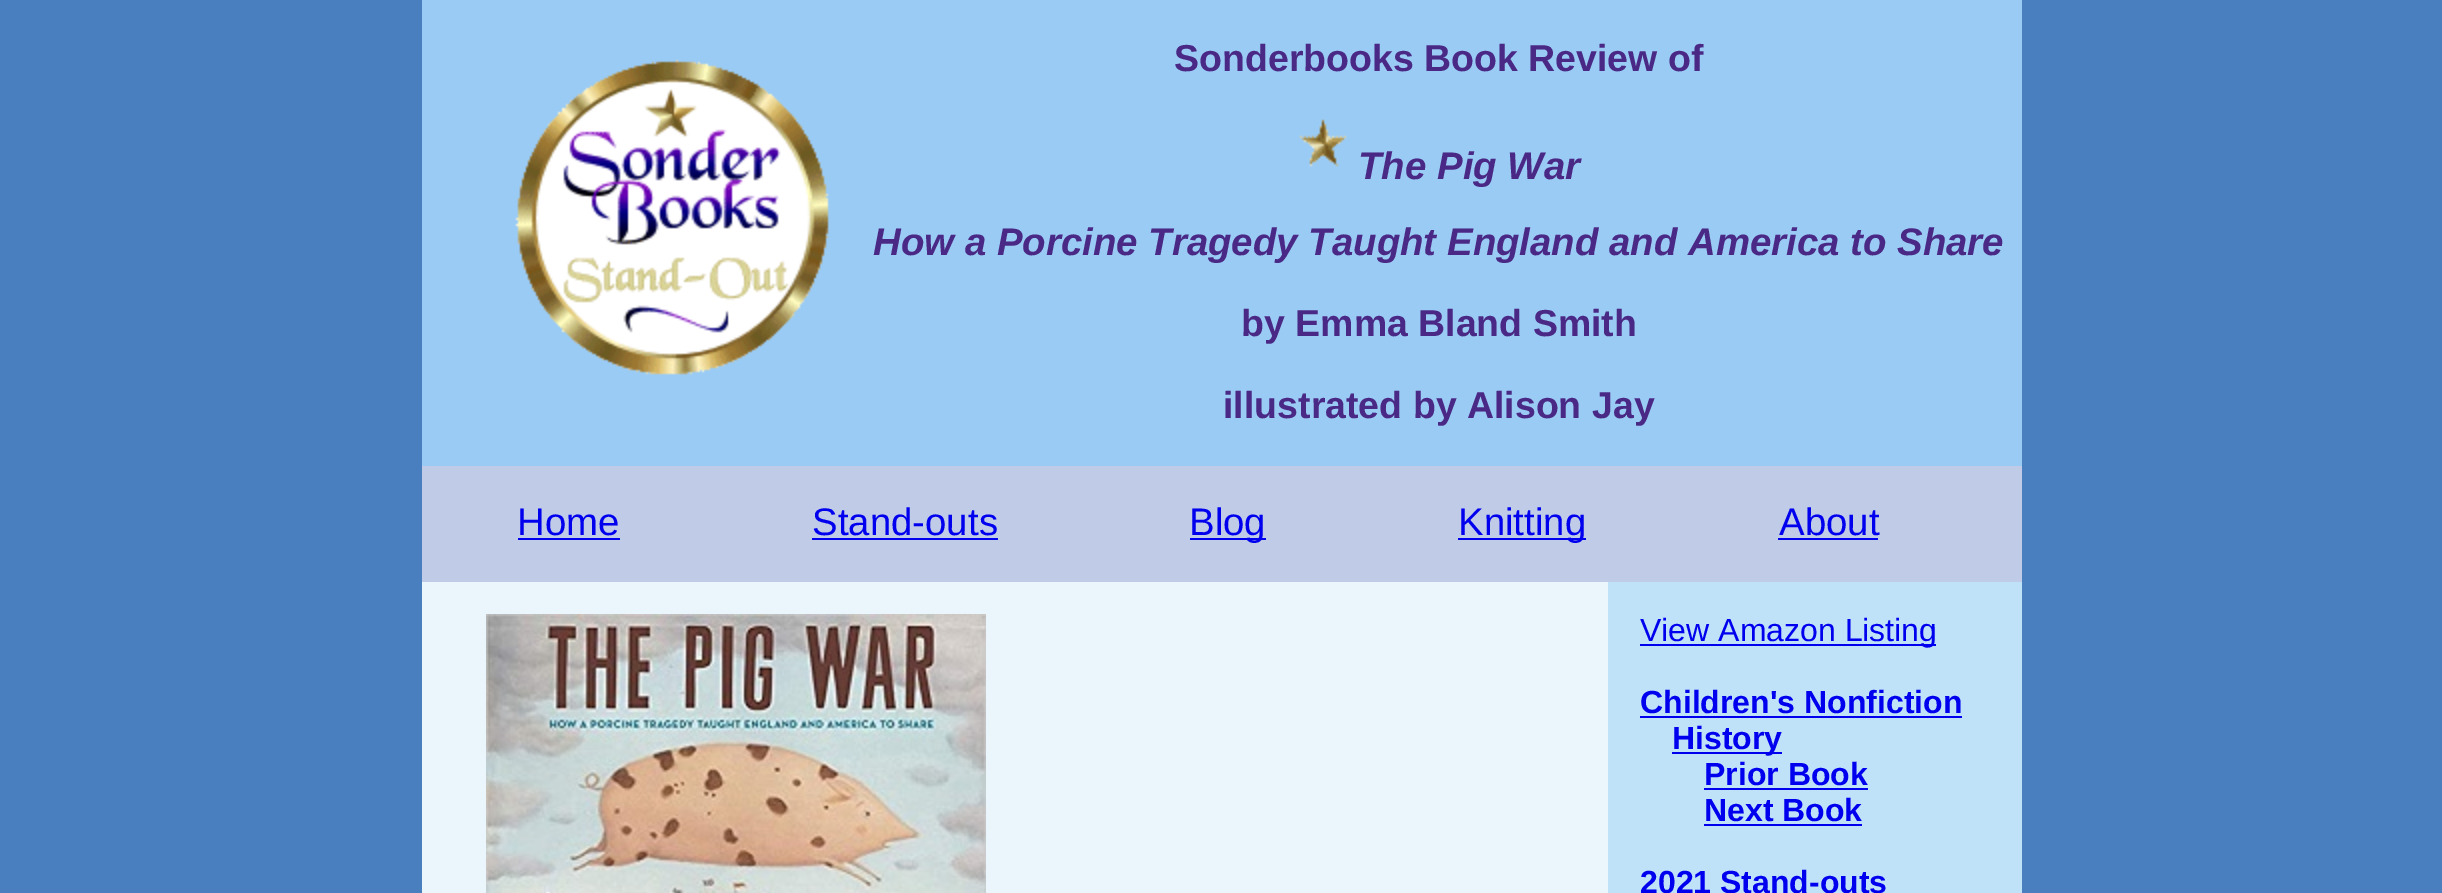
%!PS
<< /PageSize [2442 893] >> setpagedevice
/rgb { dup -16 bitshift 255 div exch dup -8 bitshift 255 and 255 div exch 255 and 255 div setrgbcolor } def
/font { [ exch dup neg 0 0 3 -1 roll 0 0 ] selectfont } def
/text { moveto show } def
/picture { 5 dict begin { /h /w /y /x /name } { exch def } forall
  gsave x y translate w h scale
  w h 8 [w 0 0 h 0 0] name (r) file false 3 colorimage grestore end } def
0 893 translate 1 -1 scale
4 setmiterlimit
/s1 { /LiberationSans-Bold 37.5 font 16#4A2885 rgb } def
/s2 { /LiberationSans-BoldItalic 38.4 font 16#4A2885 rgb } def
/s3 { /LiberationSans-Regular 38.4 font 16#0000EE rgb } def
/s4 { /LiberationSans-Regular 32 font 16#0000EE rgb } def
/s5 { /LiberationSans-Bold 32 font 16#0000EE rgb } def
16#497FBF rgb
0 0 2442 893 rectfill
16#9ACBF4 rgb
422 0 1600 466 rectfill
(pic1.raw) 515 59 314 316 picture
s1
(Sonderbooks Book Review of) 1174 71 text
(pic2.raw) 1299 119 48 48 picture
s2
(The Pig War) 1358 179 text
(How a Porcine Tragedy Taught England and America to Share) 873 255 text
s1
(by Emma Bland Smith) 1241 336 text
(illustrated by Alison Jay) 1223 418 text
16#C0CBE7 rgb
422 466 1600 116 rectfill
s3
(Home) 517 535 text
518 538 102 2 rectfill
(Stand-outs) 812 535 text
812 538 186 2 rectfill
1190 538 76 2 rectfill
(Blog) 1189 535 text
1458 538 128 2 rectfill
(Knitting) 1458 535 text
(About) 1779 535 text
1778 538 100 2 rectfill
16#EBF5FC rgb
422 582 1186 311 rectfill
(pic3.raw) 486 614 500 279 picture
16#BFE2F9 rgb
1608 582 414 311 rectfill
16#0000EE rgb
1640 644 296 2 rectfill
s4
(View Amazon Listing) 1640 641 text
s5
(Children's Nonfiction) 1640 713 text
1640 716 322 2 rectfill
1672 752 110 2 rectfill
(History) 1672 749 text
(Prior Book) 1704 785 text
1704 788 164 2 rectfill
(Next Book) 1704 821 text
1704 824 158 2 rectfill
(2021 Stand-outs) 1640 893 text
showpage
